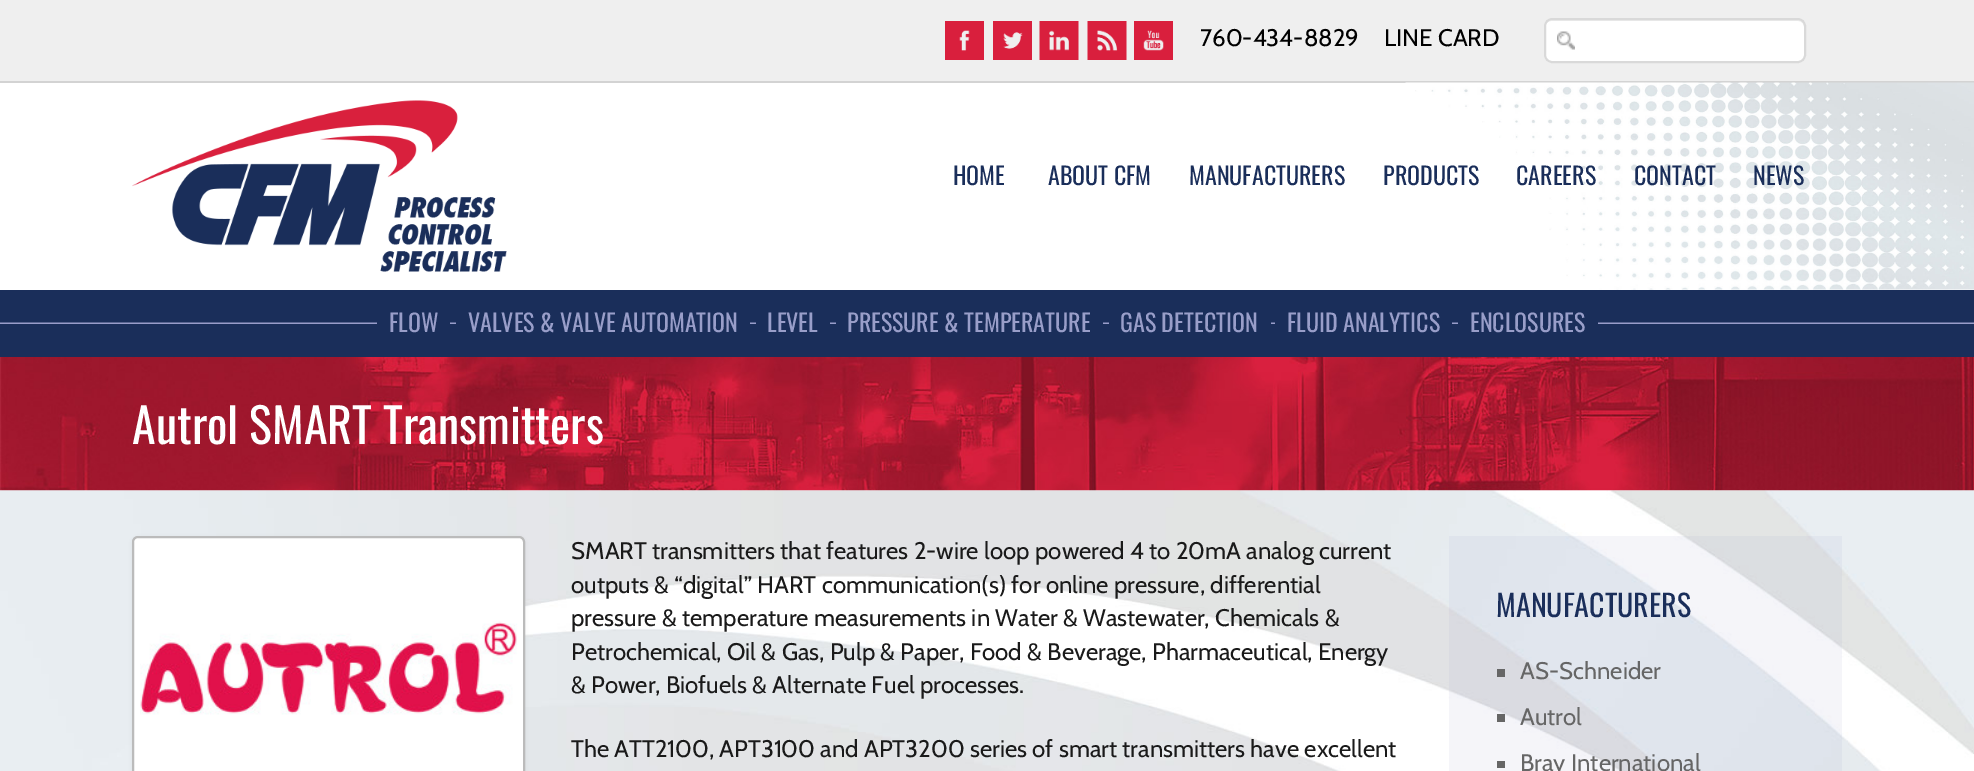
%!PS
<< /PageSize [1974 771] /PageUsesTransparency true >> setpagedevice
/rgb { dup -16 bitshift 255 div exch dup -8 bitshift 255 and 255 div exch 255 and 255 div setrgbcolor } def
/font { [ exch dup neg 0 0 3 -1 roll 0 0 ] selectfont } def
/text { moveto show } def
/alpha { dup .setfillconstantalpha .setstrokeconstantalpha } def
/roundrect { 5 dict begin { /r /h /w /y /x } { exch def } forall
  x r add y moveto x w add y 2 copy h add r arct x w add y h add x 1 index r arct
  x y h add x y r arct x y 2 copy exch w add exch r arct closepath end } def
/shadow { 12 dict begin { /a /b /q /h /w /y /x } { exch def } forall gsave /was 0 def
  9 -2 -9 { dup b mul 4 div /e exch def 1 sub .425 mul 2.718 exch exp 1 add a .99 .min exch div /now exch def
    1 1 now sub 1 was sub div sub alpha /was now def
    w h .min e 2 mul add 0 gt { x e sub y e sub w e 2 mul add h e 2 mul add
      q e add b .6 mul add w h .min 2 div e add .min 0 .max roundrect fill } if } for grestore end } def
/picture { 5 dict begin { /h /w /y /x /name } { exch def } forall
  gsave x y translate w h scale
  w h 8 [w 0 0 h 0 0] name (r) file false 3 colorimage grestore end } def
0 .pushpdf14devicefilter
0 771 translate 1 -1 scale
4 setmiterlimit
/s1 { /Cabin-Regular 24 font 16#000000 rgb } def
/s2 { /Oswald-Regular 24 font 16#1A2E5A rgb } def
/s3 { /Oswald-Regular 24 font 16#999EC9 rgb } def
/s4 { /Oswald-Regular 48 font 16#FFFFFF rgb } def
/s5 { /Cabin-Regular 24 font 16#1A1A1A rgb } def
/s6 { /Oswald-Regular 30 font 16#1A2E5A rgb } def
/s7 { /Cabin-Regular 24 font 16#666666 rgb } def
16#FFFFFF rgb
0 0 1974 771 rectfill
16#EFEFEF rgb
0 0 1974 81 rectfill
16#D3D3D3 rgb
0 81 1974 2 rectfill
(pic1.raw) 945 21 39 39 picture
(pic2.raw) 993 21 39 39 picture
(pic3.raw) 1039 21 40 39 picture
(pic4.raw) 1087 21 40 39 picture
(pic5.raw) 1134 21 39 39 picture
s1
(760-434-8829) 1200 46 text
(LINE CARD) 1384 46 text
16#FFFFFF rgb
1544 18 262 45 8 roundrect fill
(pic6.raw) 1557 31 18 19 picture
16#ECECEC rgb
1551 21 moveto 1798 21 lineto 1802 21 1804 24 1804 27 curveto 1804 57 lineto 1804 58 1804 59 1803 60 curveto 1804 59 1805 58 1805 56 curveto 1805 26 lineto 1805 23 1802 20 1799 20 curveto 1551 20 lineto 1548 20 1545 23 1545 26 curveto 1545 27 lineto 1545 24 1548 21 1551 21 curveto closepath fill
16#D9D9D9 rgb
2 setlinewidth
1545 19 260 43 7 roundrect stroke
(pic7.raw) 1405 82 569 208 picture
(pic8.raw) 132 100 375 172 picture
s2
(HOME) 953 185 text
(ABOUT CFM) 1048 185 text
(MANUFACTURERS) 1189 185 text
(PRODUCTS) 1383 185 text
(CAREERS) 1516 185 text
(CONTACT) 1634 185 text
(NEWS) 1753 185 text
0 290 1974 67 rectfill
(pic9.raw) 0 322 1974 2 picture
377 322 73 2 rectfill
s3
(FLOW) 389 332 text
16#1A2E5A rgb
456 322 294 2 rectfill
s3
(VALVES & VALVE AUTOMATION) 468 332 text
16#1A2E5A rgb
756 322 74 2 rectfill
s3
(LEVEL) 767 332 text
16#1A2E5A rgb
836 322 267 2 rectfill
s3
(PRESSURE & TEMPERATURE) 847 332 text
16#1A2E5A rgb
1109 322 162 2 rectfill
s3
(GAS DETECTION) 1120 332 text
16#1A2E5A rgb
1275 322 177 2 rectfill
s3
(FLUID ANALYTICS) 1287 332 text
16#1A2E5A rgb
1458 322 140 2 rectfill
s3
(ENCLOSURES) 1470 332 text
(pic10.raw) 0 357 1974 134 picture
s4
(Autrol SMART Transmitters) 132 444 text
(pic11.raw) 0 490 1974 281 picture
16#000000 rgb
132 537 393 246 6 2 0.06 shadow
16#FFFFFF rgb
133 537 391 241 5 roundrect gsave fill grestore
16#BBBBBB rgb
stroke
(pic12.raw) 140 621 378 94 picture
s5
(SMART transmitters that features 2-wire loop powered 4 to 20mA analog current) 571 559 text
(outputs & “digital” HART communication\(s\) for online pressure, differential) 571 593 text
(pressure & temperature measurements in Water & Wastewater, Chemicals &) 571 626 text
(Petrochemical, Oil & Gas, Pulp & Paper, Food & Beverage, Pharmaceutical, Energy) 571 660 text
(& Power, Biofuels & Alternate Fuel processes.) 571 693 text
(The ATT2100, APT3100 and APT3200 series of smart transmitters have excellent) 571 757 text
0.1 alpha
16#999EC9 rgb
1449 536 393 235 rectfill
1 alpha
s6
(MANUFACTURERS) 1496 617 text
16#666666 rgb
1497 669 8 8 rectfill
s7
(AS-Schneider) 1520 679 text
1497 714 8 8 rectfill
(Autrol) 1520 725 text
1497 761 8 7 rectfill
(Bray International) 1520 771 text
.poppdf14devicefilter showpage
